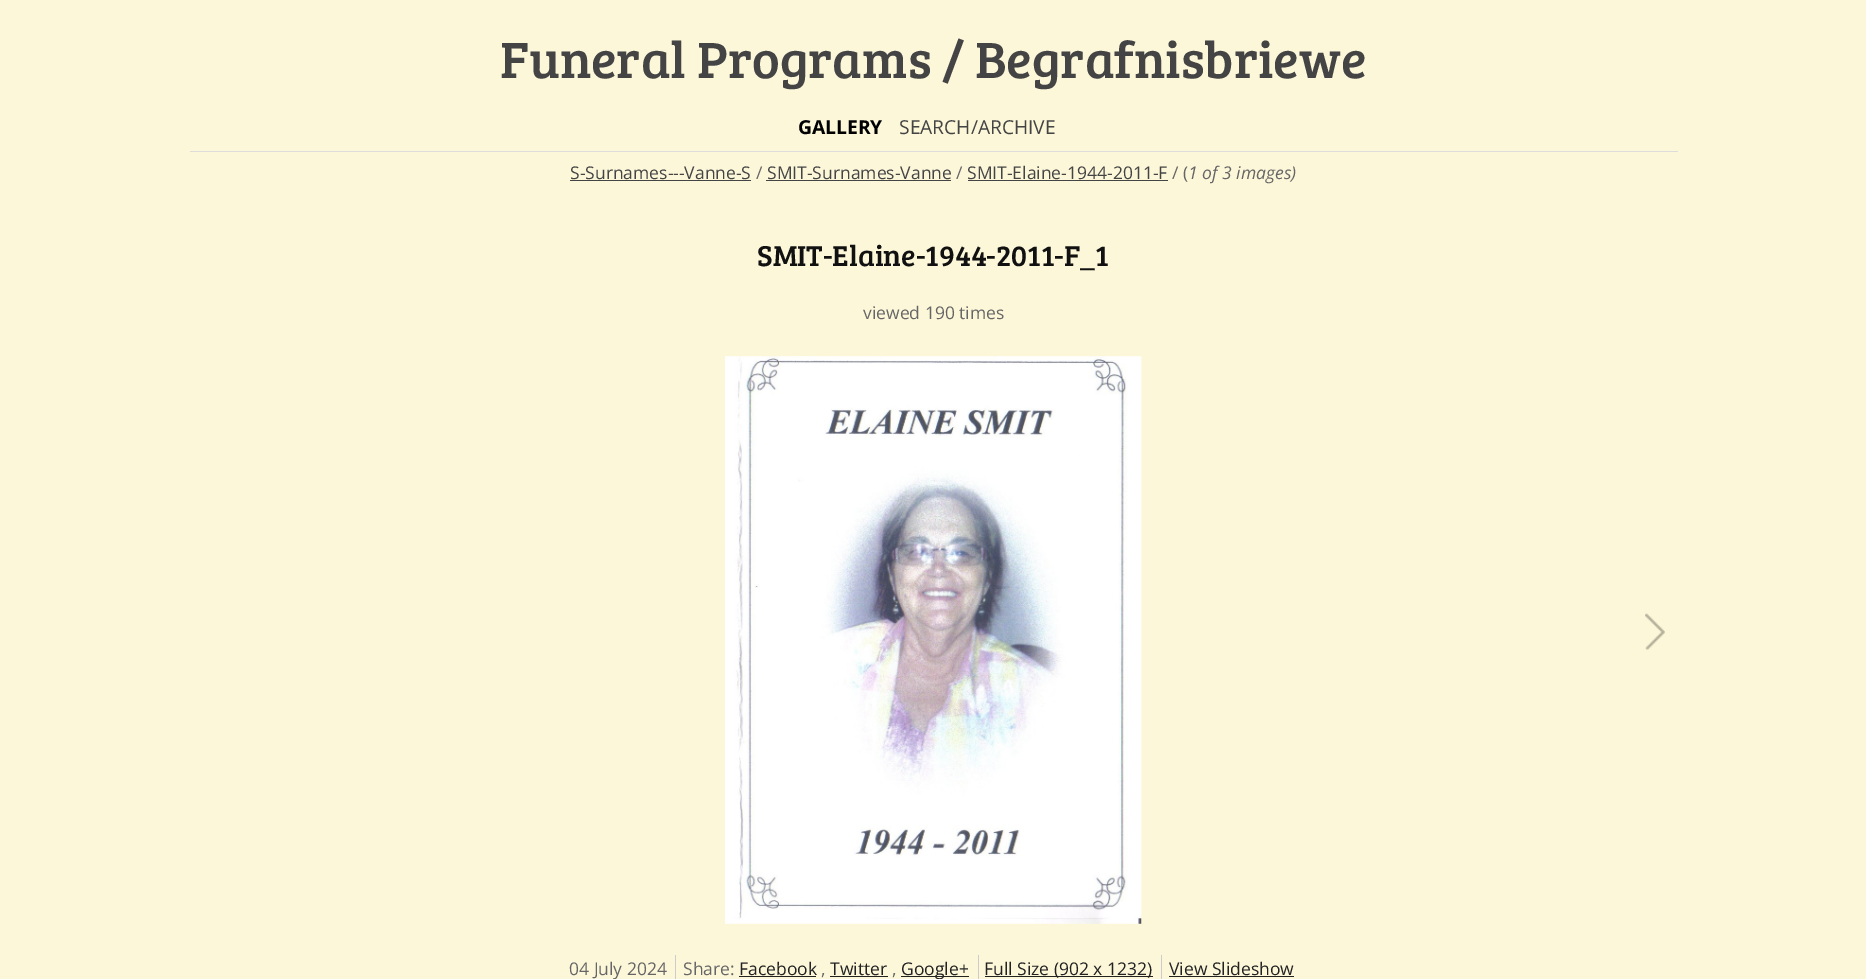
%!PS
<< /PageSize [1866 979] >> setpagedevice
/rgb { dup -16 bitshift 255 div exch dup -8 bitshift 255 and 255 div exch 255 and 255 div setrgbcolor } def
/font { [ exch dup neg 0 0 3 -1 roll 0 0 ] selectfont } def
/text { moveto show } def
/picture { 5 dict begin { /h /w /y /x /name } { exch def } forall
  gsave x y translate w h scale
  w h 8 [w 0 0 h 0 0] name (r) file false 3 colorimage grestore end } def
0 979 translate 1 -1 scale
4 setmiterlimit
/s1 { /BreeSerif-Regular 52.5 font 16#444444 rgb } def
/s2 { /OpenSans-Bold 19.25 font 16#000000 rgb } def
/s3 { /OpenSans-Regular 19.25 font 16#444444 rgb } def
/s4 { /OpenSans-Regular 17.5 font 16#444444 rgb } def
/s5 { /OpenSans-Regular 17.5 font 16#666666 rgb } def
/s6 { /OpenSans-Italic 17.5 font 16#666666 rgb } def
/s7 { /BreeSerif-Regular 29.75 font 16#111111 rgb } def
/s8 { /OpenSans-Regular 17.5 font 16#222222 rgb } def
16#FCF7D9 rgb
0 0 1866 979 rectfill
16#DDDDDD rgb
190 151 1488 1 rectfill
s1
(Funeral Programs / Begrafnisbriewe) 500 78 text
s2
(GALLERY) 798 134 text
s3
(SEARCH/ARCHIVE) 899 134 text
s4
(S-Surnames---Vanne-S) 570 179 text
570 180 181 1 rectfill
s5
(/) 756 179 text
s4
(SMIT-Surnames-Vanne) 767 179 text
766 180 185 1 rectfill
s5
(/) 956 179 text
s4
(SMIT-Elaine-1944-2011-F) 967 179 text
968 180 200 1 rectfill
s5
(/ \() 1172 179 text
s6
(1 of 3 images\)) 1188 179 text
s7
(SMIT-Elaine-1944-2011-F_1) 757 266 text
s5
(viewed 190 times) 863 319 text
(pic1.raw) 725 356 417 568 picture
(pic2.raw) 1645 613 20 37 picture
(04 July 2024) 569 975 text
16#CCCCCC rgb
675 955 1 24 rectfill
s5
(Share:) 683 975 text
s8
(Facebook) 739 975 text
739 976 77 1 rectfill
s5
(,) 821 975 text
s8
(Twitter) 830 975 text
830 976 58 1 rectfill
s5
(,) 892 975 text
16#222222 rgb
901 976 68 1 rectfill
(Google+) 901 975 text
16#CCCCCC rgb
978 955 1 24 rectfill
16#222222 rgb
985 976 168 1 rectfill
(Full Size \(902 x 1232\)) 984 975 text
16#CCCCCC rgb
1161 955 1 24 rectfill
s8
(View Slideshow) 1169 975 text
1169 976 125 1 rectfill
showpage
